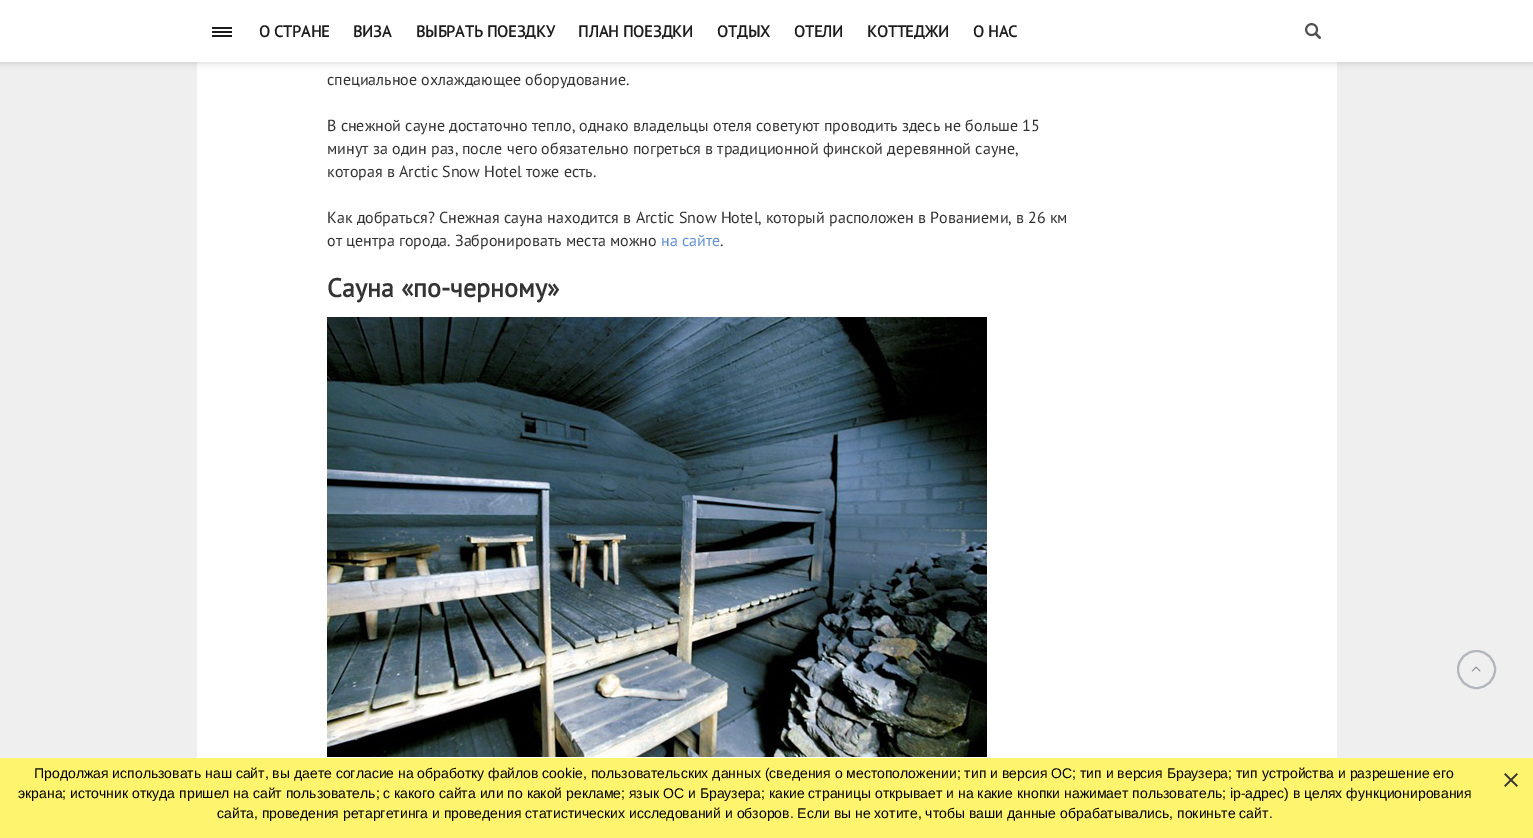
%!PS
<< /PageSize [1533 838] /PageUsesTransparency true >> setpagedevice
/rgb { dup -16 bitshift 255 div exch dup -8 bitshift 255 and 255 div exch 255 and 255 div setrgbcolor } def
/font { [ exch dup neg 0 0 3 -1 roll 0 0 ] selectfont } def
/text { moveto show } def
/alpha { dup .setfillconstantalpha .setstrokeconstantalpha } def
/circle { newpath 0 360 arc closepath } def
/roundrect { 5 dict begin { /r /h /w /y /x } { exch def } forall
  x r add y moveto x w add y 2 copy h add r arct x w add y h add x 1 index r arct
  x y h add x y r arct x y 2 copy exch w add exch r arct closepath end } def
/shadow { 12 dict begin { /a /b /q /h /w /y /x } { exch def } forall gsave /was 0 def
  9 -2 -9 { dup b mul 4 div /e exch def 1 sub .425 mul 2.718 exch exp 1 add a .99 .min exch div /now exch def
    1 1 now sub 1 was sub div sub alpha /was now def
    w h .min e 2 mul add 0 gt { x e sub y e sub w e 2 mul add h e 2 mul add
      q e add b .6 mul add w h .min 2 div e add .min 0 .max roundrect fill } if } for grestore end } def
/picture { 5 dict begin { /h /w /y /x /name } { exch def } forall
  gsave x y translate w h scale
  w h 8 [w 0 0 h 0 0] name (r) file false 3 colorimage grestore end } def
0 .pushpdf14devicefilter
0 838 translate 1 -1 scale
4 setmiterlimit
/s1 { /PTSans-Bold 16 font 16#1C1C1C rgb } def
/s2 { /PTSans-Regular 16 font 16#333333 rgb } def
/s3 { /PTSans-Regular 16 font 16#5F91D6 rgb } def
/s4 { /PTSans-Bold 26 font 16#333333 rgb } def
/s5 { /LiberationSans-Regular 14 font 16#000000 rgb } def
16#EFEFEF rgb
0 0 1533 838 rectfill
16#FFFFFF rgb
197 62 1140 696 rectfill
16#000000 rgb
0 1 1533 62 0 3.5 0.15 shadow
16#FFFFFF rgb
0 0 1533 62 rectfill
16#1C1C1C rgb
212 31 20 2 rectfill
212 27 20 2 rectfill
212 35 20 2 rectfill
s1
(О СТРАНЕ) 259 37 text
(ВИЗА) 353 37 text
(ВЫБРАТЬ ПОЕЗДКУ) 416 37 text
(ПЛАН ПОЕЗДКИ) 578 37 text
(ОТДЫХ) 717 37 text
(ОТЕЛИ) 794 37 text
(КОТТЕДЖИ) 867 37 text
(О НАС) 973 37 text
(pic1.raw) 1305 23 16 16 picture
s2
(специальное охлаждающее оборудование.) 327 85 text
(В снежной сауне достаточно тепло, однако владельцы отеля советуют проводить здесь не больше 15) 327 131 text
(минут за один раз, после чего обязательно погреться в традиционной финской деревянной сауне,) 327 154 text
(которая в Arctic Snow Hotel тоже есть.) 327 177 text
(Как добраться? Снежная сауна находится в Arctic Snow Hotel, который расположен в Рованиеми, в 26 км) 327 223 text
(от центра города. Забронировать места можно) 327 246 text
s3
(на сайте) 661 246 text
s2
(.) 720 246 text
s4
(Сауна «по-черному») 327 297 text
(pic2.raw) 327 317 660 440 picture
16#B1B5BC rgb
2 setlinewidth
1476.5 669.5 18.5 circle stroke
(pic3.raw) 1471 666 10 6 picture
16#FFF46D rgb
0 758 1533 80 rectfill
s5
(Продолжая использовать наш сайт, вы даете согласие на обработку файлов cookie, пользовательских данных \(сведения о местоположении; тип и версия ОС; тип и версия Браузера; тип устройства и разрешение его) 34 778 text
(экрана; источник откуда пришел на сайт пользователь; с какого сайта или по какой рекламе; язык ОС и Браузера; какие страницы открывает и на какие кнопки нажимает пользователь; ip-адрес\) в целях функционирования) 18 798 text
(сайта, проведения ретаргетинга и проведения статистических исследований и обзоров. Если вы не хотите, чтобы ваши данные обрабатывались, покиньте сайт.) 217 818 text
(pic4.raw) 1504 773 14 14 picture
.poppdf14devicefilter showpage
